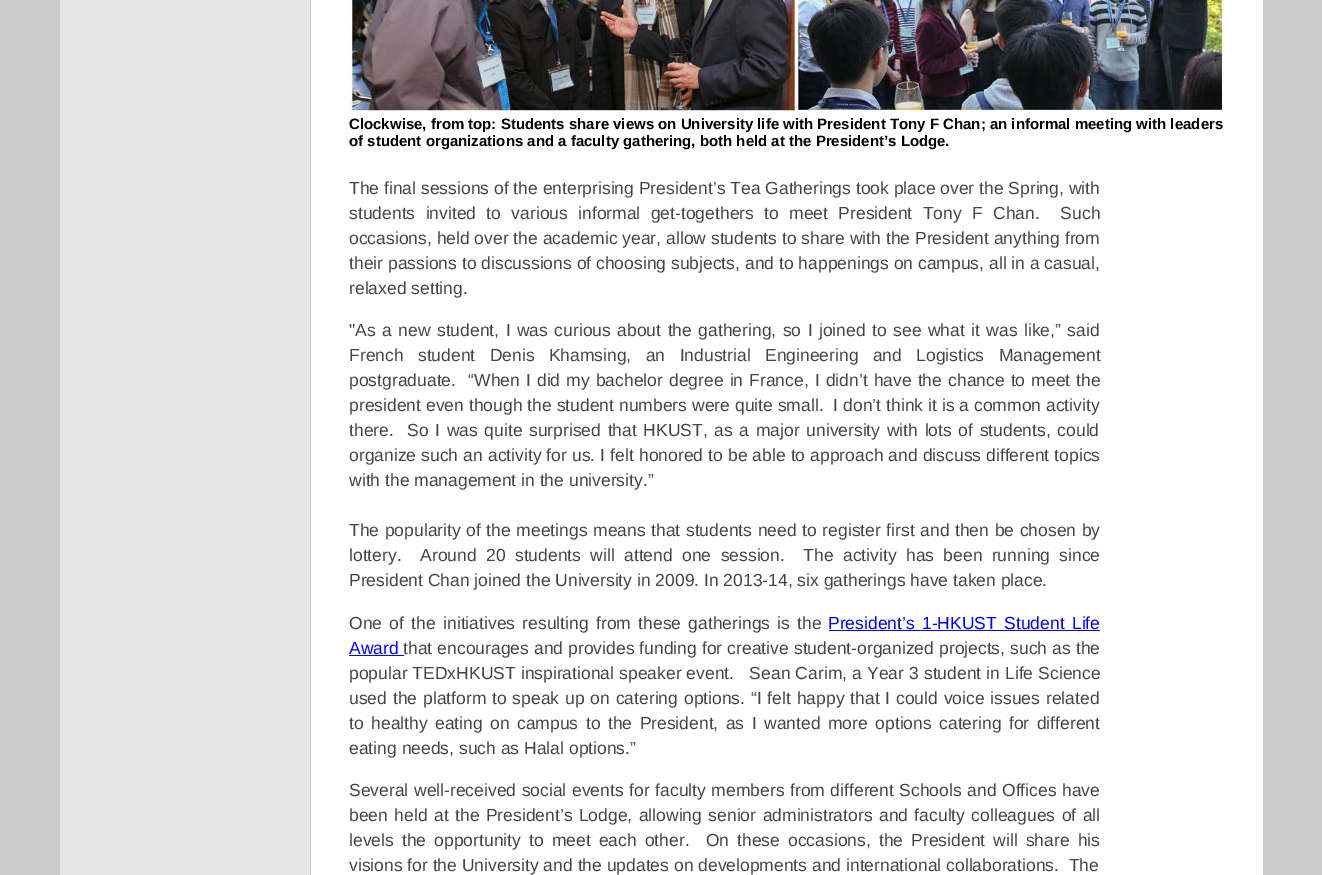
%!PS
<< /PageSize [1322 875] >> setpagedevice
/rgb { dup -16 bitshift 255 div exch dup -8 bitshift 255 and 255 div exch 255 and 255 div setrgbcolor } def
/font { [ exch dup neg 0 0 3 -1 roll 0 0 ] selectfont } def
/text { moveto show } def
/picture { 5 dict begin { /h /w /y /x /name } { exch def } forall
  gsave x y translate w h scale
  w h 8 [w 0 0 h 0 0] name (r) file false 3 colorimage grestore end } def
0 875 translate 1 -1 scale
4 setmiterlimit
/s1 { /LiberationSans-Bold 15 font 16#000000 rgb } def
/s2 { /LiberationSans-Regular 17.5 font 16#454545 rgb } def
/s3 { /LiberationSans-Regular 17.5 font 16#0000EE rgb } def
16#CCCCCC rgb
0 0 1322 875 rectfill
16#E6E6E6 rgb
60 0 250 875 rectfill
16#FFFFFF rgb
311 0 952 875 rectfill
(pic1.raw) 349 0 875 112 picture
s1
(Clockwise, from top: Students share views on University life with President Tony F Chan; an informal meeting with leaders) 349 129 text
(of student organizations and a faculty gathering, both held at the President’s Lodge.) 349 146 text
s2
(The final sessions of the enterprising President’s Tea Gatherings took place over the Spring, with) 349 194 text
349 219 moveto 5.5 0 32 (students invited to various informal get-togethers to meet President Tony F Chan.  Such) widthshow
(occasions, held over the academic year, allow students to share with the President anything from) 349 244 text
(their passions to discussions of choosing subjects, and to happenings on campus, all in a casual,) 349 269 text
(relaxed setting.) 349 294 text
349 336 moveto 1.6 0 32 ("As a new student, I was curious about the gathering, so I joined to see what it was like,” said) widthshow
349 361 moveto 9.5 0 32 (French student Denis Khamsing, an Industrial Engineering and Logistics Management) widthshow
349 386 moveto 1.25 0 32 (postgraduate.  “When I did my bachelor degree in France, I didn’t have the chance to meet the) widthshow
349 411 moveto 0.1 0 32 (president even though the student numbers were quite small.  I don’t think it is a common activity) widthshow
349 436 moveto 1.8 0 32 (there.  So I was quite surprised that HKUST, as a major university with lots of students, could) widthshow
349 461 moveto 0.25 0 32 (organize such an activity for us. I felt honored to be able to approach and discuss different topics) widthshow
(with the management in the university.”) 349 486 text
349 536 moveto 0.75 0 32 (The popularity of the meetings means that students need to register first and then be chosen by) widthshow
349 561 moveto 4.5 0 32 (lottery.  Around 20 students will attend one session.  The activity has been running since) widthshow
(President Chan joined the University in 2009. In 2013-14, six gatherings have taken place.) 349 586 text
349 629 moveto 2.5 0 32 (One of the initiatives resulting from these gatherings is the) widthshow
16#0000EE rgb
828 629 moveto 2.5 0 32 (President’s 1-HKUST Student Life) widthshow
829 630 271 1 rectfill
(Award) 349 654 text
349 655 55 1 rectfill
16#454545 rgb
403 654 moveto 0.25 0 32 (that encourages and provides funding for creative student-organized projects, such as the) widthshow
349 679 moveto 0.25 0 32 (popular TEDxHKUST inspirational speaker event.   Sean Carim, a Year 3 student in Life Science) widthshow
349 704 moveto 1 0 32 (used the platform to speak up on catering options. “I felt happy that I could voice issues related) widthshow
349 729 moveto 2.6 0 32 (to healthy eating on campus to the President, as I wanted more options catering for different) widthshow
(eating needs, such as Halal options.”) 349 754 text
349 796 moveto 0.75 0 32 (Several well-received social events for faculty members from different Schools and Offices have) widthshow
349 821 moveto 1.6 0 32 (been held at the President’s Lodge, allowing senior administrators and faculty colleagues of all) widthshow
349 846 moveto 3.25 0 32 (levels the opportunity to meet each other.  On these occasions, the President will share his) widthshow
(visions for the University and the updates on developments and international collaborations.  The) 349 871 text
showpage
